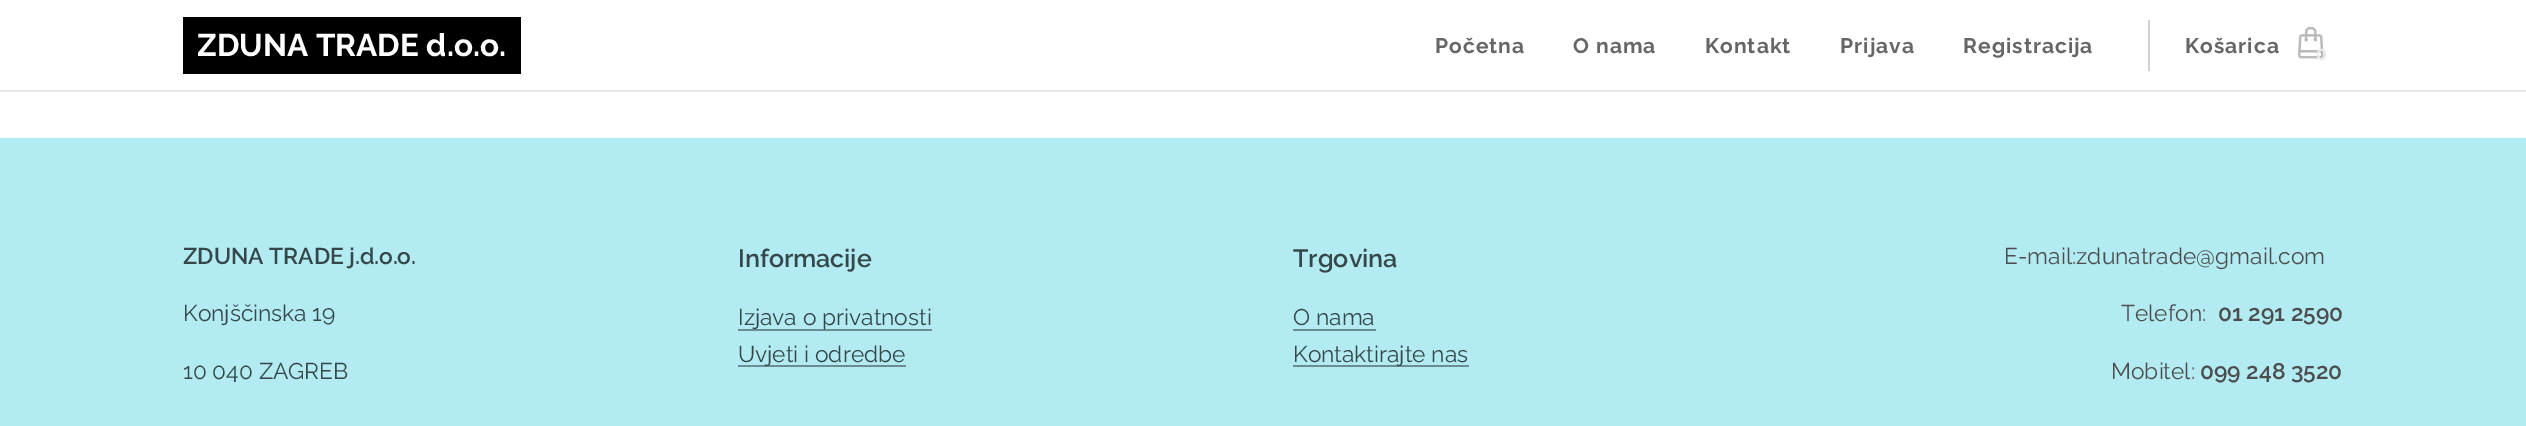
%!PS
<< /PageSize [2526 426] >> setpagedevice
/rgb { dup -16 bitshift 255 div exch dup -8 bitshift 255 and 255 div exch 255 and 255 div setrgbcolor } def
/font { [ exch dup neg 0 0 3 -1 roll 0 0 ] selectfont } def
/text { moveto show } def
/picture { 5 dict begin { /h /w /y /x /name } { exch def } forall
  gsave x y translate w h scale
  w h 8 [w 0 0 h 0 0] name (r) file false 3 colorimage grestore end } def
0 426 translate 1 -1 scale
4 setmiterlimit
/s1 { /Raleway-Bold 31.5 font 16#FFFFFF rgb } def
/s2 { /Montserrat-Bold 16 font 16#EAEAEA rgb } def
/s3 { /Raleway-SemiBold 22.75 font 16#354749 rgb } def
/s4 { /Raleway-Regular 22.75 font 16#354749 rgb } def
/s5 { /Raleway-SemiBold 25 font 16#354749 rgb } def
/s6 { /Raleway-Regular 22.75 font 16#4D4D4D rgb } def
/s7 { /Raleway-SemiBold 22.75 font 16#4D4D4D rgb } def
16#FFFFFF rgb
0 0 2526 426 rectfill
16#E8E8E8 rgb
0 90 2526 2 rectfill
16#000000 rgb
183 17 338 57 rectfill
s1
(ZDUNA TRADE d.o.o.) 197 56 text
/Raleway-Bold 21 font
16#666666 rgb
1435 53 moveto 1 0 (Početna) ashow
1573 53 moveto 1 0 (O nama) ashow
1705 53 moveto 1 0 (Kontakt) ashow
1840 53 moveto 1 0 (Prijava) ashow
1963 53 moveto 1 0 (Registracija) ashow
16#D1D1D1 rgb
2148 20 2 51 rectfill
16#666666 rgb
2185 53 moveto 1 0 (Košarica) ashow
(pic1.raw) 2298 26 26 33 picture
s2
(0) 2316 60 text
16#B2EBF2 rgb
0 138 2526 288 rectfill
s3
(ZDUNA TRADE j.d.o.o.) 183 264 text
s4
(Konjščinska 19) 183 321 text
(10 040 ZAGREB) 183 379 text
s5
(Informacije) 738 267 text
16#6B8D91 rgb
738 329 194 2 rectfill
s4
(Izjava o privatnosti) 738 325 text
16#6B8D91 rgb
738 365 168 2 rectfill
s4
(Uvjeti i odredbe) 738 362 text
s5
(Trgovina) 1293 267 text
s4
(O nama) 1293 325 text
16#6B8D91 rgb
1293 329 83 2 rectfill
1293 365 176 2 rectfill
s4
(Kontaktirajte nas) 1293 362 text
s6
(E-mail:zdunatrade@gmail.com) 2004 264 text
(Telefon:) 2121 321 text
s7
(01 291 2590) 2218 321 text
s6
(Mobitel:) 2111 379 text
s7
(099 248 3520) 2200 379 text
showpage
